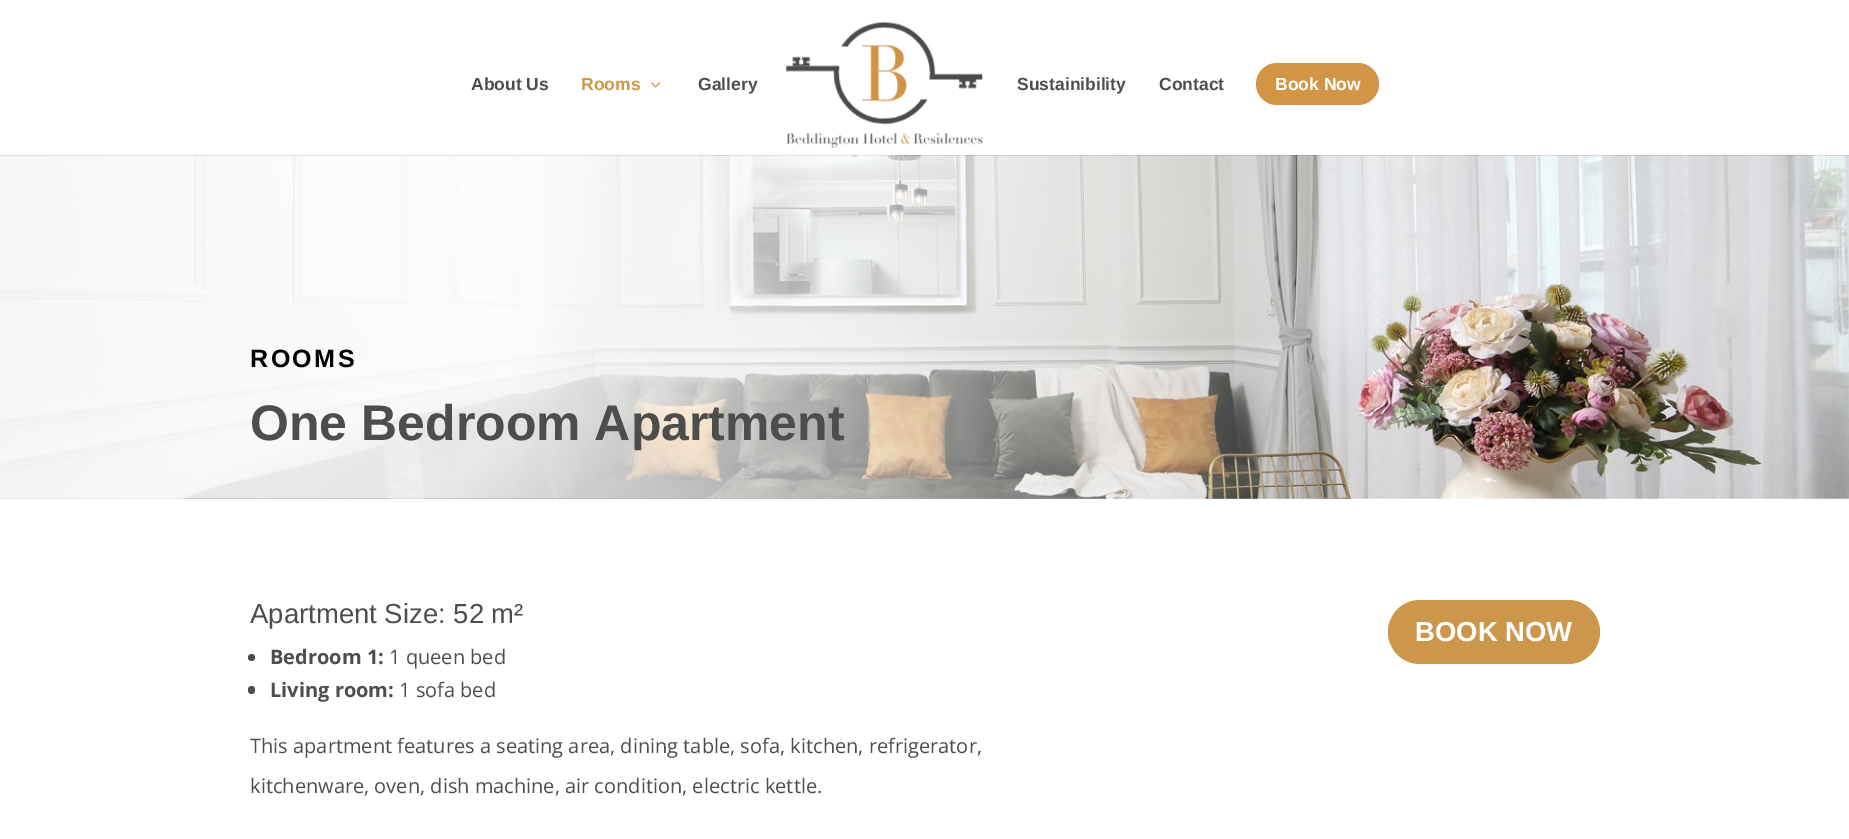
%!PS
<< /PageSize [1849 839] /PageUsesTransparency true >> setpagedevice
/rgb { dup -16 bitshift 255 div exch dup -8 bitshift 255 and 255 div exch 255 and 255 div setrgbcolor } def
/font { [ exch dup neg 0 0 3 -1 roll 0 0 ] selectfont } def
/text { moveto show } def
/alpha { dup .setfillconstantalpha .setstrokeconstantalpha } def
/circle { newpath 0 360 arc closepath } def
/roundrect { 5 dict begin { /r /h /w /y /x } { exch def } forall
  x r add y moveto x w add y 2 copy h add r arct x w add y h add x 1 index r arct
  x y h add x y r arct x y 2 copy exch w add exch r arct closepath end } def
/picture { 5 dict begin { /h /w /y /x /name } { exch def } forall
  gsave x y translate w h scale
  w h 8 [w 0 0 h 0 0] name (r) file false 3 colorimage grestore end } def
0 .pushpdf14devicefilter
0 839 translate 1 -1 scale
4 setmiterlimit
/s1 { /LiberationSans-Bold 17.5 font 16#4C4D4C rgb } def
/s2 { /LiberationSans-Bold 17.5 font 16#D19545 rgb } def
/s3 { /LiberationSans-Bold 17.5 font 16#FFFFFF rgb } def
/s4 { /LiberationSans-Bold 50 font 16#4C4D4C rgb } def
/s5 { /LiberationSans-Regular 27.5 font 16#4C4D4C rgb } def
/s6 { /OpenSans-Bold 20 font 16#4C4D4C rgb } def
/s7 { /OpenSans-Regular 20 font 16#4C4D4C rgb } def
/s8 { /LiberationSans-Bold 27.5 font 16#FFFFFF rgb } def
16#FFFFFF rgb
0 0 1849 839 rectfill
(pic3.raw) 0 155 1849 344 picture
0.1 alpha
16#000000 rgb
0 155 1849 1 rectfill
1 alpha
s1
(About Us) 471 90 text
s2
(Rooms) 581 90 text
(pic1.raw) 651 82 10 6 picture
s1
(Gallery) 698 90 text
(pic2.raw) 786 22 197 126 picture
(Sustainibility) 1017 90 text
(Contact) 1159 90 text
16#D19545 rgb
1256 63 123 42 21 roundrect fill
s3
(Book Now) 1275 90 text
/LiberationSans-Bold 25 font
16#000000 rgb
250 367 moveto 2.5 0 (ROOMS) ashow
s4
(One Bedroom Apartment) 250 440 text
s5
(Apartment Size: 52 m²) 250 623 text
251.5 657.5 3.5 circle fill
s6
(Bedroom 1:) 270 664 text
s7
(1 queen bed) 389 664 text
248 686 7 8 3.5 roundrect fill
s6
(Living room:) 270 697 text
s7
(1 sofa bed) 399 697 text
(This apartment features a seating area, dining table, sofa, kitchen, refrigerator,) 250 753 text
(kitchenware, oven, dish machine, air condition, electric kettle.) 250 793 text
16#CC974A rgb
1388 600 212 64 32 roundrect fill
s8
(BOOK NOW) 1415 641 text
.poppdf14devicefilter showpage
